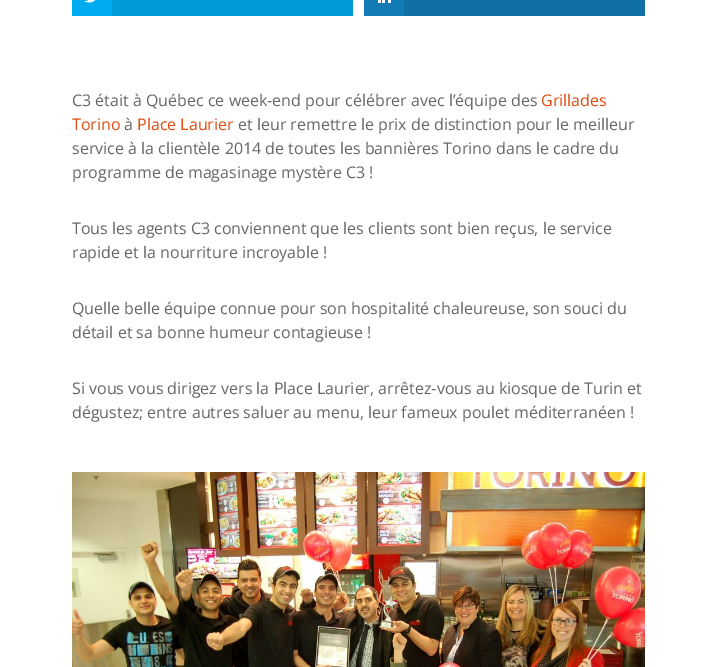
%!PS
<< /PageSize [717 667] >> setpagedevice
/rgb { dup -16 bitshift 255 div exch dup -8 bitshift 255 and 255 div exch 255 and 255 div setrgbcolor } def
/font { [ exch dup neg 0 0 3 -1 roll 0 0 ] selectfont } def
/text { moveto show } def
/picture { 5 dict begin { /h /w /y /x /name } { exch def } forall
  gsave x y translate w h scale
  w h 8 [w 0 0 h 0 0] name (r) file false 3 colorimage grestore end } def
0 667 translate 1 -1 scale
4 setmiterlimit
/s1 { /OpenSans-Regular 16 font 16#666666 rgb } def
/s2 { /OpenSans-Regular 16 font 16#E24B0E rgb } def
16#FFFFFF rgb
0 0 717 667 rectfill
16#00ABF0 rgb
72 0 40 16 rectfill
(pic1.raw) 84 0 12 3 picture
16#009AD8 rgb
112 0 241 16 rectfill
16#127BB6 rgb
364 0 40 16 rectfill
(pic2.raw) 378 0 13 3 picture
16#106FA4 rgb
404 0 241 16 rectfill
s1
(C3 était à Québec ce week-end pour célébrer avec l’équipe des) 72 106 text
s2
(Grillades) 541 106 text
(Torino) 72 130 text
s1
(à) 124 130 text
s2
(Place Laurier) 137 130 text
s1
(et leur remettre le prix de distinction pour le meilleur) 238 130 text
(service à la clientèle 2014 de toutes les bannières Torino dans le cadre du) 72 154 text
(programme de magasinage mystère C3 !) 72 178 text
(Tous les agents C3 conviennent que les clients sont bien reçus, le service) 72 234 text
(rapide et la nourriture incroyable !) 72 258 text
(Quelle belle équipe connue pour son hospitalité chaleureuse, son souci du) 72 314 text
(détail et sa bonne humeur contagieuse !) 72 338 text
(Si vous vous dirigez vers la Place Laurier, arrêtez-vous au kiosque de Turin et) 72 394 text
(dégustez; entre autres saluer au menu, leur fameux poulet méditerranéen !) 72 418 text
(pic3.raw) 72 472 573 195 picture
showpage
